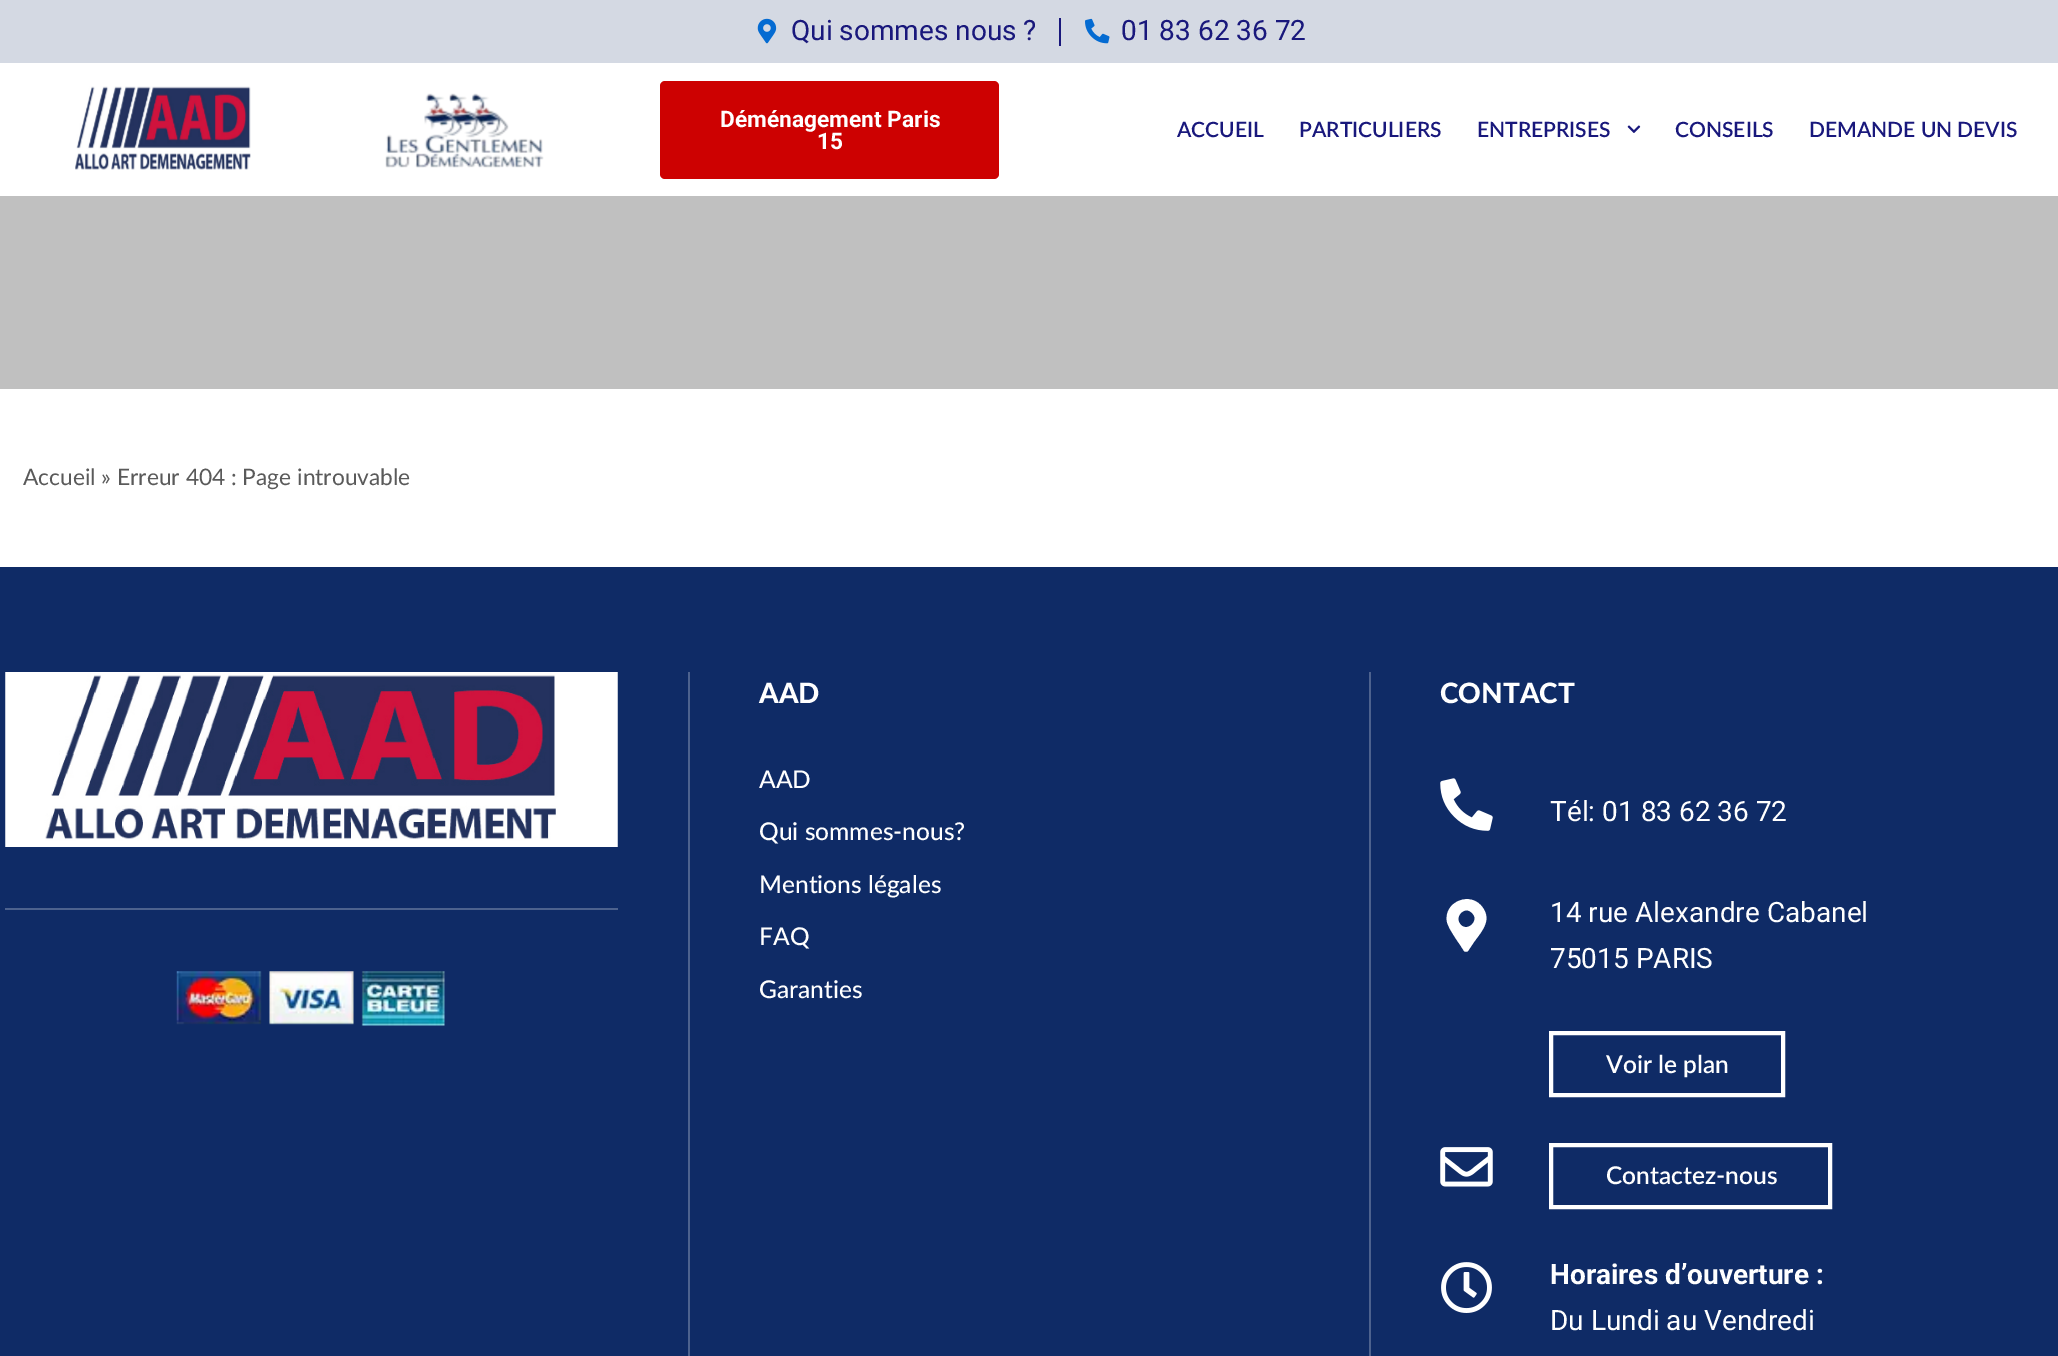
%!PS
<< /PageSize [2058 1356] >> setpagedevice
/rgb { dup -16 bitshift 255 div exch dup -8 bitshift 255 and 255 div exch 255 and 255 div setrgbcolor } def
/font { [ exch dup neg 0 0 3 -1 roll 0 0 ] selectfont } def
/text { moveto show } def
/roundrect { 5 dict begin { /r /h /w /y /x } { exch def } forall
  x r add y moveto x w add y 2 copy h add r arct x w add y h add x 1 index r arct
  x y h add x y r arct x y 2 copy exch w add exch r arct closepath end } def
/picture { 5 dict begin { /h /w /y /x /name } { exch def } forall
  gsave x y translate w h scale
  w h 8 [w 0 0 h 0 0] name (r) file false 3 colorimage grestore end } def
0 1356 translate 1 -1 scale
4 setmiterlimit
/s1 { /Roboto-Regular 28 font 16#19187C rgb } def
/s2 { /Roboto-Bold 22.75 font 16#FFFFFF rgb } def
/s3 { /Lato-SemiBold 21 font 16#19187C rgb } def
/s4 { /Lato-Regular 22.75 font 16#5A5A5A rgb } def
/s5 { /Lato-Black 28 font 16#FFFFFF rgb } def
/s6 { /Lato-Medium 24.5 font 16#FFFFFF rgb } def
/s7 { /Roboto-Regular 28 font 16#FFFFFF rgb } def
/s8 { /Lato-SemiBold 24.5 font 16#FFFFFF rgb } def
/s9 { /Roboto-Bold 28 font 16#FFFFFF rgb } def
16#FFFFFF rgb
0 0 2058 1356 rectfill
16#D4D9E3 rgb
0 0 2058 63 rectfill
(pic1.raw) 757 18 20 26 picture
s1
(Qui sommes nous ?) 791 40 text
1059 18 2 28 rectfill
(pic2.raw) 1085 18 25 26 picture
(01 83 62 36 72) 1121 40 text
(pic3.raw) 75 86 176 84 picture
(pic4.raw) 385 93 159 75 picture
16#CD0101 rgb
660 81 339 98 5 roundrect fill
s2
(Déménagement Paris) 720 127 text
(15) 817 149 text
s3
(ACCUEIL) 1177 137 text
(PARTICULIERS) 1299 137 text
(ENTREPRISES) 1477 137 text
(pic5.raw) 1627 125 14 8 picture
(CONSEILS) 1675 137 text
(DEMANDE UN DEVIS) 1809 137 text
16#C0C0C0 rgb
0 196 2058 193 rectfill
s4
(Accueil » Erreur 404 : Page introuvable) 23 485 text
16#0F2B66 rgb
0 567 2058 789 rectfill
(pic6.raw) 5 672 613 175 picture
16#4D628E rgb
5 908 613 2 rectfill
(pic7.raw) 176 971 269 55 picture
1369 672 2 684 rectfill
688 672 2 684 rectfill
s5
(AAD) 759 703 text
s6
(AAD) 759 788 text
(Qui sommes-nous?) 759 840 text
(Mentions légales) 759 893 text
(FAQ) 759 945 text
(Garanties) 759 998 text
s5
(CONTACT) 1440 703 text
(pic8.raw) 1440 778 53 53 picture
s7
(Tél: 01 83 62 36 72) 1550 821 text
1464 951 moveto 1460 944 1449 930 1447 922 curveto 1443 902 1471 890 1483 908 curveto 1492 921 1481 932 1474 942 curveto 1468 951 lineto 1467 952 1465 952 1464 951 curveto closepath 1461 925 moveto 1468 932 1480 920 1472 913 curveto 1465 905 1453 917 1461 925 curveto closepath fill
(14 rue Alexandre Cabanel) 1550 922 text
(75015 PARIS) 1550 968 text
4 setlinewidth
1551 1033 232 62 rectstroke
s8
(Voir le plan) 1606 1073 text
(pic9.raw) 1440 1147 53 40 picture
1551 1145 279 62 rectstroke
(Contactez-nous) 1606 1184 text
(pic10.raw) 1441 1262 51 51 picture
s9
(Horaires d’ouverture :) 1550 1284 text
s7
(Du Lundi au Vendredi) 1550 1330 text
showpage
